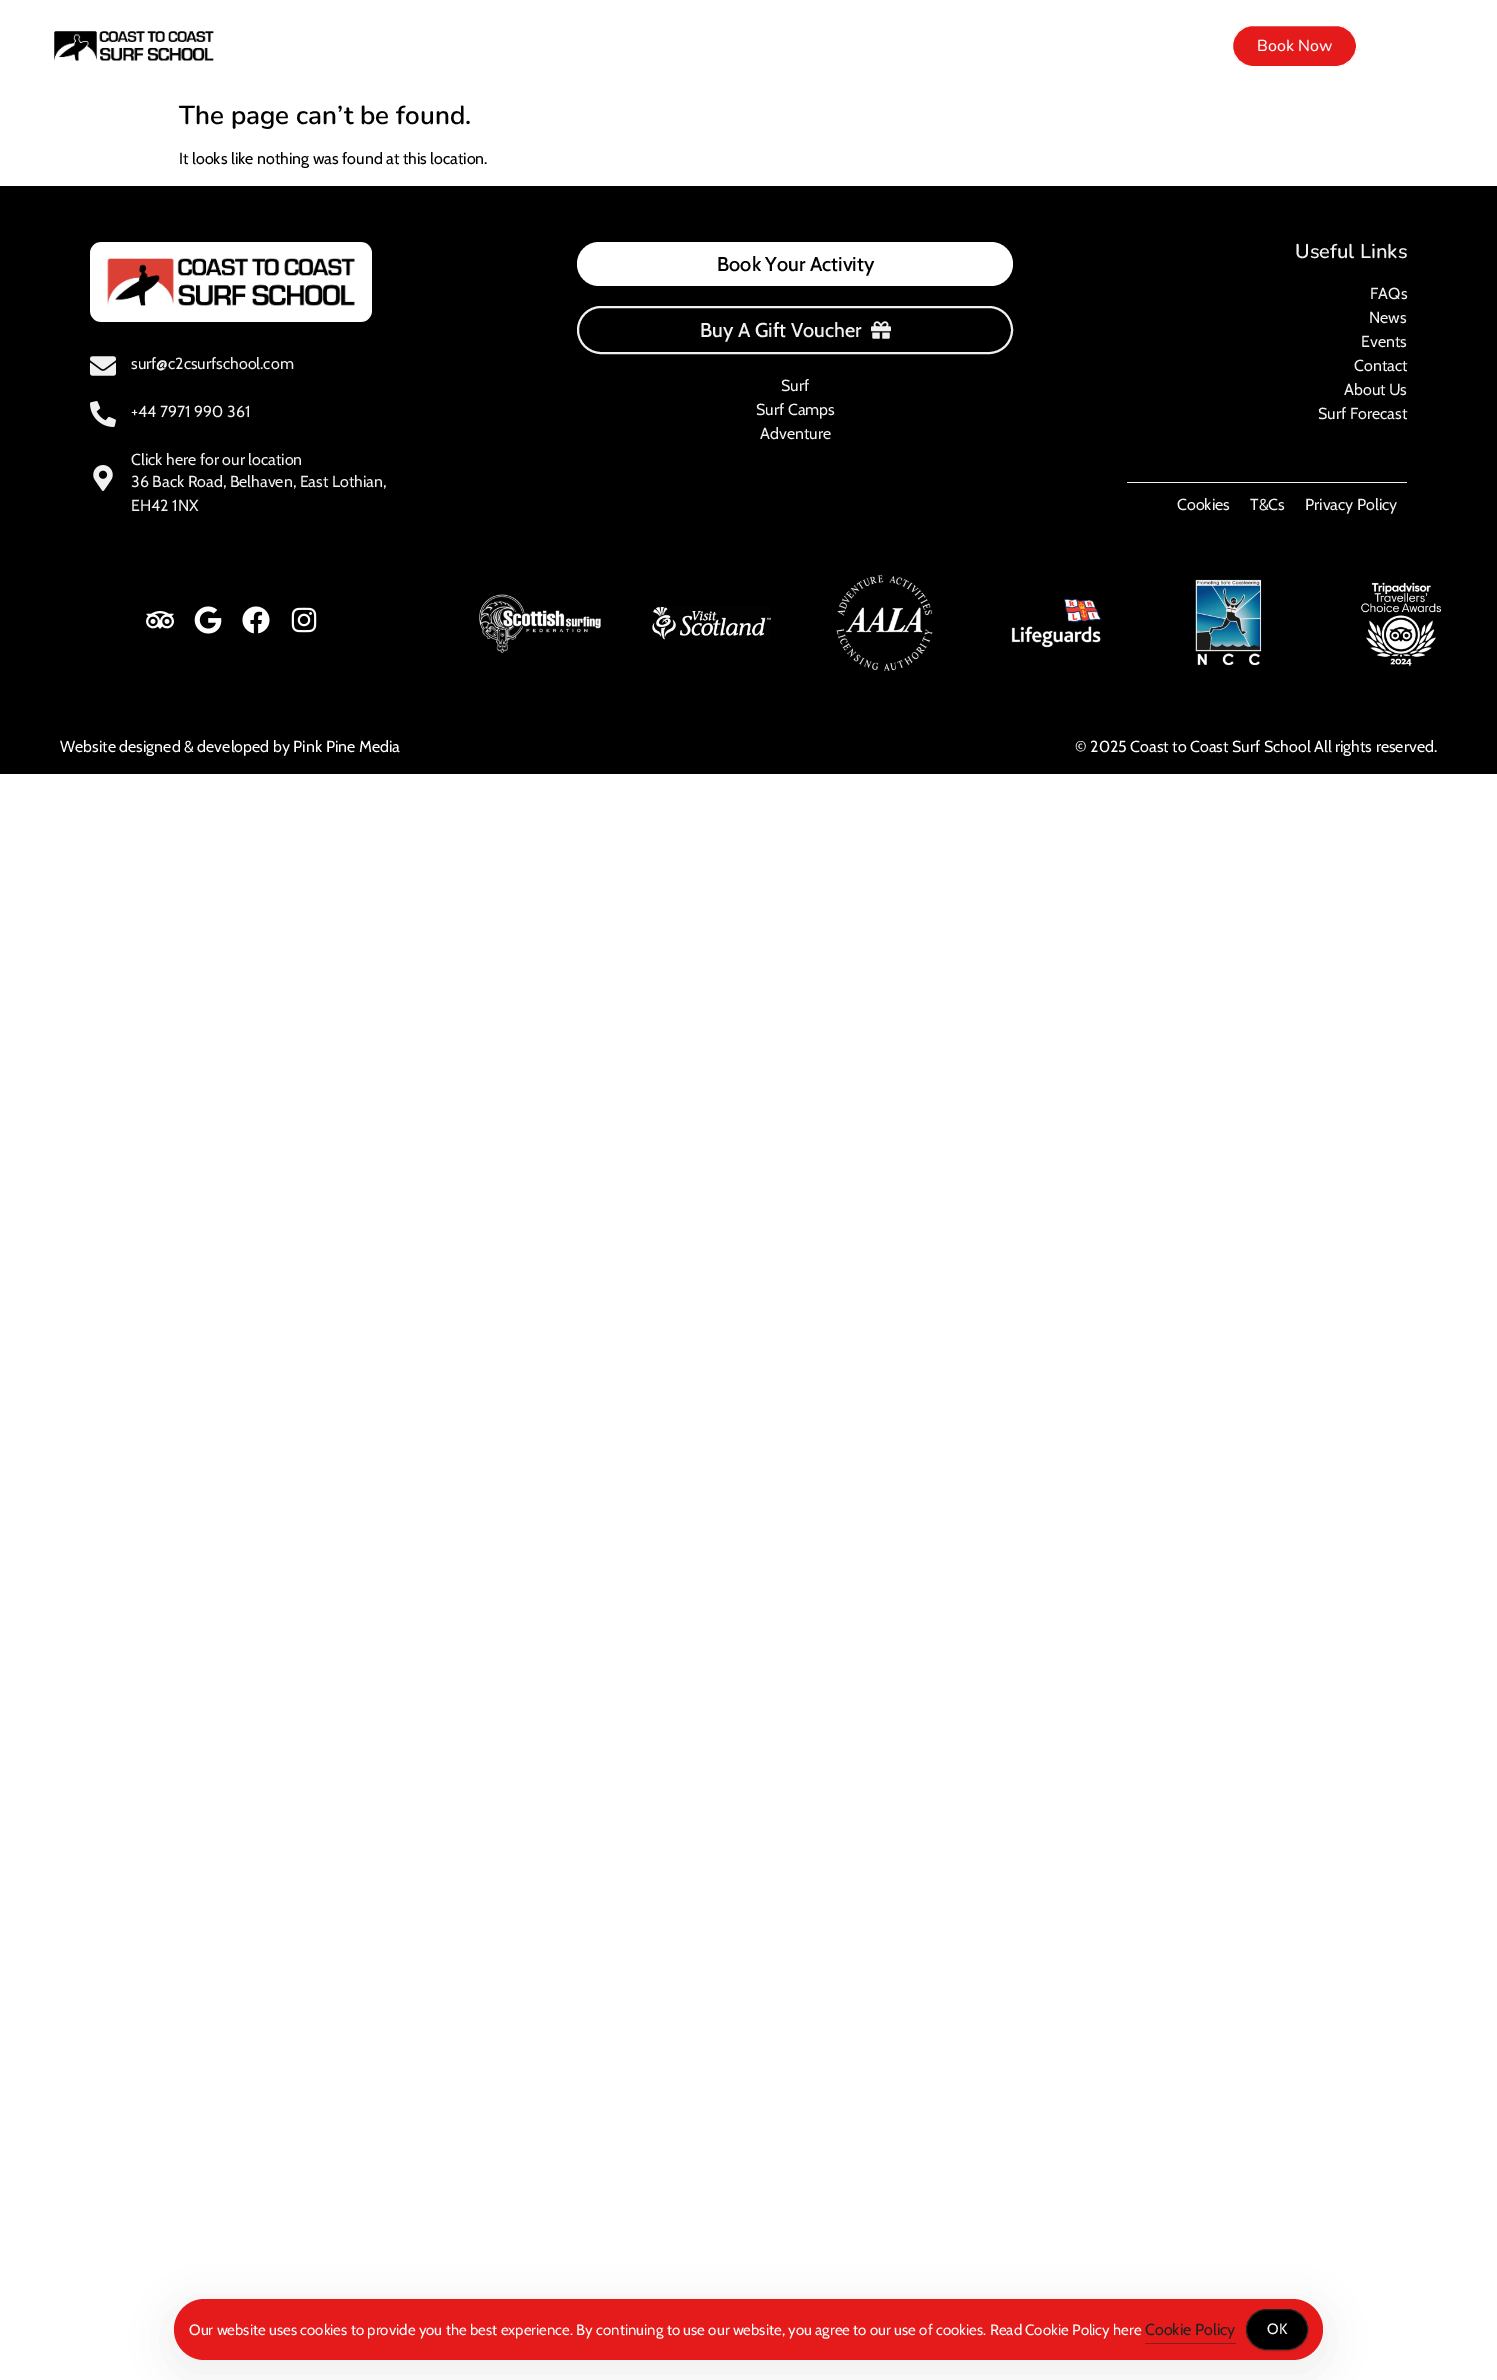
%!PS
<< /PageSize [1497 2380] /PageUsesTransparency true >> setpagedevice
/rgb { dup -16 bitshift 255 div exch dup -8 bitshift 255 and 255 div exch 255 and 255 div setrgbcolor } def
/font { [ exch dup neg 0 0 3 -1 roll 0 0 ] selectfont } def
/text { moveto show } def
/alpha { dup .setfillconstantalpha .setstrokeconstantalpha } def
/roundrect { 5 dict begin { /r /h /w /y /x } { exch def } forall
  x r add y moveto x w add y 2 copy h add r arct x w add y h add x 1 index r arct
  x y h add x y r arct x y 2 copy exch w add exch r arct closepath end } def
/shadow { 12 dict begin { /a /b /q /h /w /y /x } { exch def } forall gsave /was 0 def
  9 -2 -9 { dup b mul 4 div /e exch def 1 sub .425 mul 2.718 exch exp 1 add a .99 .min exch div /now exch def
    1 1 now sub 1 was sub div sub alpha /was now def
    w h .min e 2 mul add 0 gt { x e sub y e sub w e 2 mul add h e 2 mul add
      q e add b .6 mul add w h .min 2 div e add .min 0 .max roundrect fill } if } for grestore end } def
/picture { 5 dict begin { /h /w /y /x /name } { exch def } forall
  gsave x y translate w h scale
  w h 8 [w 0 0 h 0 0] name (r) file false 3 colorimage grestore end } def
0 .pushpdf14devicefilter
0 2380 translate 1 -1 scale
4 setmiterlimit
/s1 { /Nunito-Medium 16 font 16#FFFFFF rgb } def
/s2 { /Nunito-SemiBold 26 font 16#000000 rgb } def
/s3 { /Cabin-Regular 16 font 16#000000 rgb } def
/s4 { /Cabin-Regular 16 font 16#F0F0F0 rgb } def
/s5 { /Cabin-Medium 20 font 16#000000 rgb } def
/s6 { /Cabin-Medium 20 font 16#F0F0F0 rgb } def
/s7 { /Nunito-SemiBold 20 font 16#F0F0F0 rgb } def
/s8 { /Cabin-Regular 16 font 16#FFFFFF rgb } def
/s9 { /Cabin-Regular 15 font 16#FFFFFF rgb } def
/s10 { /Cabin-Regular 16 font 16#222222 rgb } def
16#FFFFFF rgb
0 0 1497 2380 rectfill
(pic1.raw) 54 31 160 31 picture
16#E51B1B rgb
1232.5 25.5 124 41 20.5 roundrect gsave fill grestore
16#FFFFFF rgb
stroke
s1
(Book Now) 1257 51 text
s2
(The page can’t be found.) 179 124 text
s3
(It looks like nothing was found at this location.) 179 164 text
0 186 1497 533 rectfill
(pic2.raw) 90 242 282 80 picture
(pic3.raw) 90 356 26 20 picture
s4
(surf@c2csurfschool.com) 131 369 text
(pic4.raw) 90 401 26 26 picture
(+44 7971 990 361) 131 417 text
(pic5.raw) 93 465 20 26 picture
(Click here for our location) 131 465 text
(36 Back Road, Belhaven, East Lothian,) 131 487 text
(EH42 1NX) 131 511 text
16#FFFFFF rgb
577 242 436 44 22 roundrect fill
s5
(Book Your Activity) 717 271 text
16#F0F0F0 rgb
2 setlinewidth
578 307 434 46 23 roundrect stroke
(Buy A Gift Voucher) 700 337 text
(pic6.raw) 871 321 20 18 picture
s4
(Surf) 781 391 text
(Surf Camps) 756 415 text
(Adventure) 760 439 text
s7
(Useful Links) 1295 258 text
s4
(FAQs) 1370 299 text
(News) 1369 323 text
(Events) 1361 347 text
(Contact) 1354 371 text
(About Us) 1344 395 text
(Surf Forecast) 1318 419 text
1127 482 280 1 rectfill
(Cookies) 1177 510 text
(T&Cs) 1250 510 text
(Privacy Policy) 1305 510 text
(pic7.raw) 146 611 28 18 picture
(pic8.raw) 194 606 28 28 picture
(pic9.raw) 242 606 28 28 picture
(pic10.raw) 291 607 26 26 picture
(pic11.raw) 479 594 122 59 picture
(pic12.raw) 652 606 119 34 picture
(pic13.raw) 836 575 97 96 picture
(pic14.raw) 1011 598 91 50 picture
(pic15.raw) 1195 579 67 87 picture
(pic16.raw) 1361 582 81 84 picture
16#000000 rgb
0 719 1497 55 rectfill
s8
(Website designed & developed by Pink Pine Media) 60 752 text
(© 2025 Coast to Coast Surf School All rights reserved.) 1075 752 text
16#000000 rgb
164 2299 1169 81 40.5 20 0.05 shadow
16#E51B1B rgb
174 2299 1149 61 30.5 roundrect fill
s9
(Our website uses cookies to provide you the best experience. By continuing to use our website, you agree to our use of cookies. Read Cookie Policy here) 189 2335 text
s10
(Cookie Policy) 1145 2335 text
16#841F1F rgb
1145 2343 91 1 rectfill
16#000000 rgb
1246 2310 62 41 20.5 2 0.1 shadow
1246.5 2309.5 61 40 20 roundrect gsave fill grestore
16#222222 rgb
1 setlinewidth
stroke
s9
(OK) 1267 2334 text
.poppdf14devicefilter showpage
